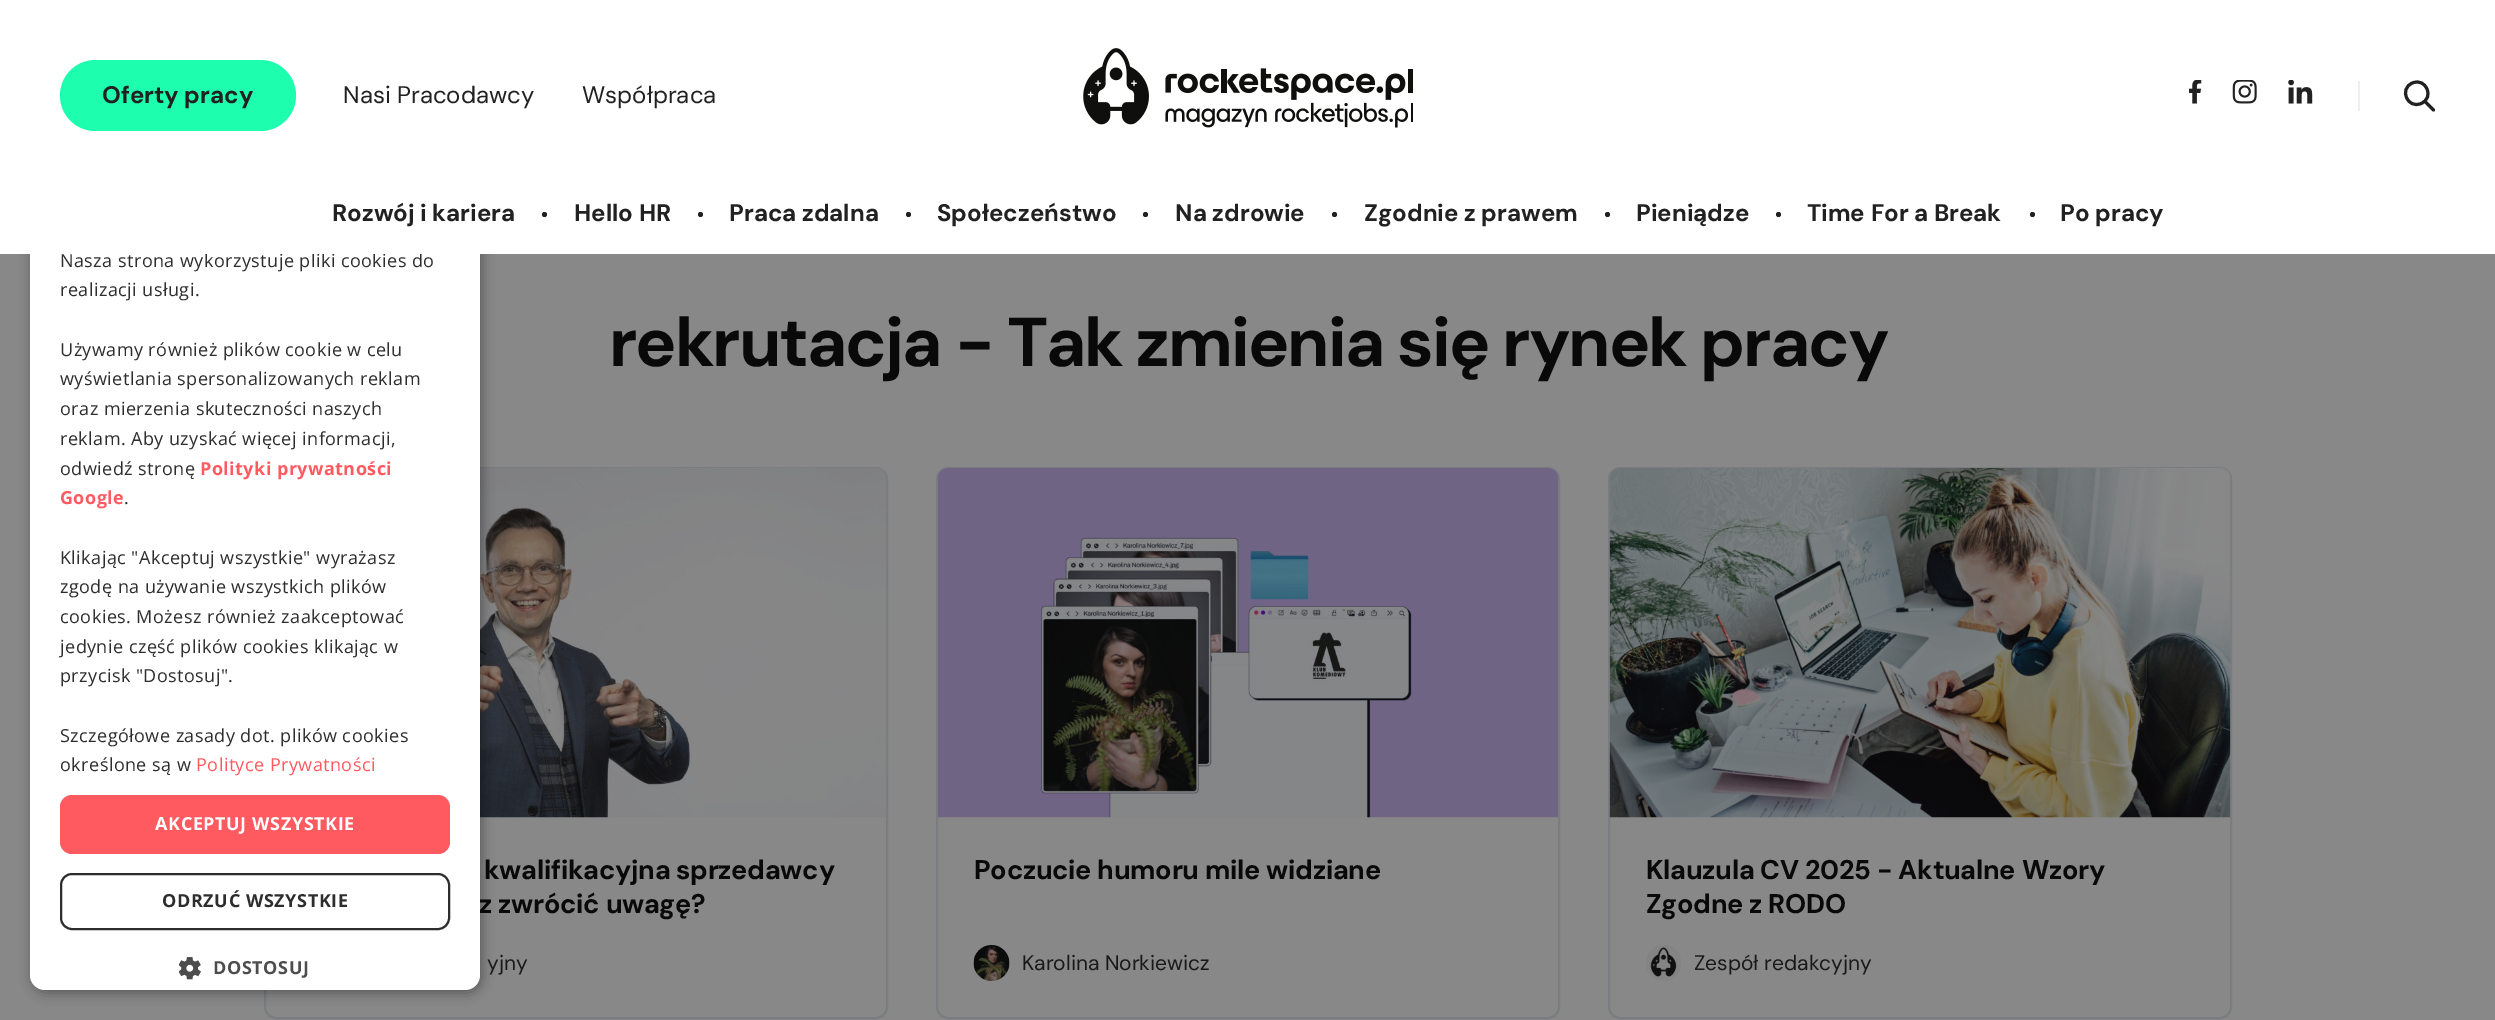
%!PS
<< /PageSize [2495 1020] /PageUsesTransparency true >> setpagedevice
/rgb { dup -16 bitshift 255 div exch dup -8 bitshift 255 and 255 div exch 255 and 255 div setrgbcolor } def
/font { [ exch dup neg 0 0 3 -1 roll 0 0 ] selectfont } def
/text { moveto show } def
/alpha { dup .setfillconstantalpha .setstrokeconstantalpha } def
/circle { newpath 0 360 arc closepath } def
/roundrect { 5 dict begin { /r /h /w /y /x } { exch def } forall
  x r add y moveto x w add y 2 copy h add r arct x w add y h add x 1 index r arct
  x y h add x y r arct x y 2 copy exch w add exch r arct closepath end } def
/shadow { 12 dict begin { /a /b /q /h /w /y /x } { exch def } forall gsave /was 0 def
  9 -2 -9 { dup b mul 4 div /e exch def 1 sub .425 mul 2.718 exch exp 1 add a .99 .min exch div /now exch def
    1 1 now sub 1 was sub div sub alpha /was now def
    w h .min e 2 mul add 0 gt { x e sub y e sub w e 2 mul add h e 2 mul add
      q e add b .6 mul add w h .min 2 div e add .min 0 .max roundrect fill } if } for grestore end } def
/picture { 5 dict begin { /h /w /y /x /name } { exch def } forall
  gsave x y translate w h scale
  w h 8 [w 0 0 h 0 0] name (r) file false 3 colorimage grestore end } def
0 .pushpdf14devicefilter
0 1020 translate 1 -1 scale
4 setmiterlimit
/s1 { /DMSans-Bold 24 font 16#212121 rgb } def
/s2 { /DMSans-Regular 24 font 16#212121 rgb } def
/s3 { /DMSans-Regular 21 font 16#191919 rgb } def
16#888888 rgb
0 0 2495 1020 rectfill
16#797C80 rgb
2 setlinewidth
265 468 622 550 11 roundrect stroke
(pic5.raw) 480 468 406 350 picture
16#000000 rgb
32 126 450 867 15 6 0.35 shadow
16#FFFFFF rgb
30 123 450 867 15 roundrect fill
/OpenSans-Regular 18 font
16#2D2D2D rgb
60 267 moveto 0.45 0 (Nasza strona wykorzystuje pliki cookies do) ashow
16#FFFFFF rgb
0 0 2495 254 rectfill
16#1DFFAE rgb
60 60 236 71 35.5 roundrect fill
s1
(Oferty pracy) 102 103 text
s2
(Nasi Pracodawcy) 343 103 text
(Współpraca) 582 103 text
(pic1.raw) 1083 48 330 80 picture
(pic2.raw) 2189 80 13 24 picture
(pic3.raw) 2232 80 25 24 picture
(pic4.raw) 2288 80 25 24 picture
16#ECEFF5 rgb
2358 81 2 30 rectfill
16#212121 rgb
3 setlinewidth
1 setlinecap
1 setlinejoin
2421 103.5 moveto 2435 98 2426 77 2412.5 83 curveto 2398.5 88.5 2407.5 109.5 2421 103.5 curveto closepath 2425 101.5 moveto 2433.5 110 lineto stroke
s1
(Rozwój i kariera) 332 221 text
544.5 214.5 2.5 circle fill
(Hello HR) 574 221 text
700.5 214.5 2.5 circle fill
(Praca zdalna) 729 221 text
908.5 214.5 2.5 circle fill
(Społeczeństwo) 937 221 text
1145.5 214.5 2.5 circle fill
(Na zdrowie) 1175 221 text
1334.5 214.5 2.5 circle fill
(Zgodnie z prawem) 1364 221 text
1607.5 214.5 2.5 circle fill
(Pieniądze) 1636 221 text
1778.5 214.5 2.5 circle fill
(Time For a Break) 1807 221 text
2032.5 214.5 2.5 circle fill
(Po pracy) 2060 221 text
/DMSans-Bold 69 font
16#090909 rgb
609 366 moveto -2.05 0 (rekrutacja - Tak zmienia się rynek pracy) ashow
/DMSans-Bold 27 font
484 879 moveto -0.25 0 (kwalifikacyjna sprzedawcy) ashow
479 913 moveto -0.25 0 (z zwrócić uwagę?) ashow
s3
(yjny) 487 970 text
16#797C80 rgb
2 setlinewidth
0 setlinecap
0 setlinejoin
937 468 622 550 11 roundrect stroke
(pic6.raw) 937 468 622 350 picture
/DMSans-Bold 27 font
16#090909 rgb
974 879 moveto -0.25 0 (Poczucie humoru mile widziane) ashow
(pic7.raw) 973 945 37 36 picture
s3
(Karolina Norkiewicz) 1022 970 text
16#797C80 rgb
1609 468 622 550 11 roundrect stroke
(pic8.raw) 1609 468 622 350 picture
/DMSans-Bold 27 font
16#090909 rgb
1646 879 moveto -0.25 0 (Klauzula CV 2025 - Aktualne Wzory) ashow
1646 913 moveto -0.25 0 (Zgodne z RODO) ashow
(pic9.raw) 1646 945 35 36 picture
s3
(Zespół redakcyjny) 1694 970 text
/OpenSans-Regular 18 font
16#2D2D2D rgb
60 296 moveto 0.45 0 (realizacji usługi.) ashow
60 356 moveto 0.45 0 (Używamy również plików cookie w celu) ashow
60 385 moveto 0.45 0 (wyświetlania spersonalizowanych reklam) ashow
60 415 moveto 0.45 0 (oraz mierzenia skuteczności naszych) ashow
60 445 moveto 0.45 0 (reklam. Aby uzyskać więcej informacji,) ashow
60 475 moveto 0.45 0 (odwiedź stronę) ashow
/OpenSans-Bold 18 font
16#FF5A5F rgb
200 475 moveto 0.45 0 (Polityki prywatności) ashow
60 504 moveto 0.45 0 (Google) ashow
/OpenSans-Regular 18 font
16#2D2D2D rgb
124 504 moveto 0.45 0 (.) ashow
60 564 moveto 0.45 0 (Klikając "Akceptuj wszystkie" wyrażasz) ashow
60 593 moveto 0.45 0 (zgodę na używanie wszystkich plików) ashow
60 623 moveto 0.45 0 (cookies. Możesz również zaakceptować) ashow
60 653 moveto 0.45 0 (jedynie część plików cookies klikając w) ashow
60 682 moveto 0.45 0 (przycisk "Dostosuj".) ashow
60 742 moveto 0.45 0 (Szczegółowe zasady dot. plików cookies) ashow
60 771 moveto 0.45 0 (określone są w) ashow
16#FF5A5F rgb
196 771 moveto 0.45 0 (Polityce Prywatności) ashow
60 795 390 59 12 roundrect fill
/OpenSans-Bold 18 font
16#FFFFFF rgb
155 830 moveto 0.6 0 (AKCEPTUJ WSZYSTKIE) ashow
16#2D2D2D rgb
61 874 388 55 11 roundrect stroke
162 907 moveto 0.6 0 (ODRZUĆ WSZYSTKIE) ashow
(pic10.raw) 179 957 22 23 picture
16#4D4D4D rgb
213 974 moveto 0.6 0 (DOSTOSUJ) ashow
.poppdf14devicefilter showpage
